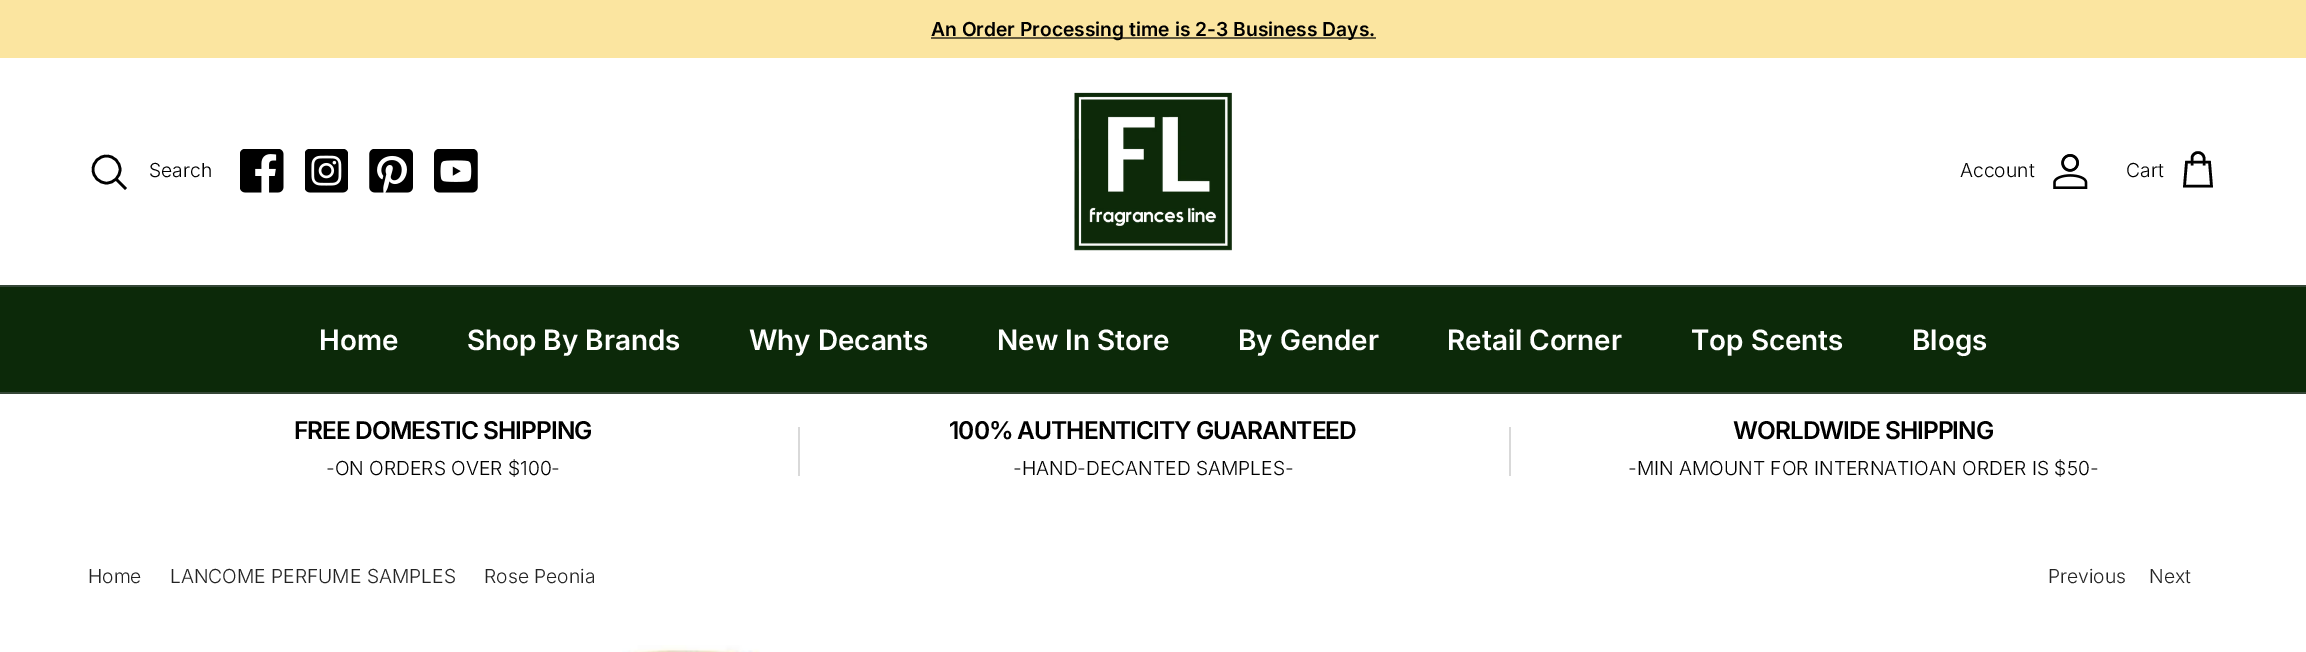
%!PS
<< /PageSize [2306 652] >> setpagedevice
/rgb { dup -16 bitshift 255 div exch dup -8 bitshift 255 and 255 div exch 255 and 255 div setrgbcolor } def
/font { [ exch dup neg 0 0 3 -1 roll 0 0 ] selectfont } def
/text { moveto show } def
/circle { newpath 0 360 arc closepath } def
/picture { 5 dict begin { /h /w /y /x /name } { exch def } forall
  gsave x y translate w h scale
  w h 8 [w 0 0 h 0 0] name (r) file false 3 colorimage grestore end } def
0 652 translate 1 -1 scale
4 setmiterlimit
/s1 { /Inter-SemiBold 19.25 font 16#000000 rgb } def
/s2 { /Inter-Light 19.25 font 16#000000 rgb } def
/s3 { /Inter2-SemiBold 28 font 16#FFFFFF rgb } def
/s4 { /Inter-Light 19.25 font 16#232323 rgb } def
16#FFFFFF rgb
0 0 2306 652 rectfill
16#FBE5A0 rgb
0 0 2306 58 rectfill
16#645C40 rgb
931 37 445 2 rectfill
s1
(An Order Processing time is 2-3 Business Days.) 931 36 text
16#354737 rgb
0 285 2306 2 rectfill
16#000000 rgb
2.6 setlinewidth
106.5 169.5 13.5 circle stroke
s2
(Search) 149 177 text
2 setlinecap
117 180 moveto 125 188 lineto stroke
(pic1.raw) 240 149 44 44 picture
(pic2.raw) 305 149 43 44 picture
(pic3.raw) 369 149 44 44 picture
(pic4.raw) 434 149 44 44 picture
(pic5.raw) 1074 92 158 159 picture
(Account) 1960 177 text
(pic6.raw) 2053 154 35 35 picture
(Cart) 2126 177 text
0 setlinecap
2204 165.5 moveto 2204 158 lineto 2204 155 2201 152.5 2198 152.5 curveto 2195 152.5 2192 155 2192 158 curveto 2192 165.5 lineto 2186.5 162 moveto 2209.5 162 lineto 2211.5 186 lineto 2184.5 186 lineto closepath stroke
16#354737 rgb
0 392 2306 2 rectfill
16#0C2909 rgb
0 287 2306 105 rectfill
s3
(Home) 319 350 text
(Shop By Brands) 467 350 text
(Why Decants) 749 350 text
(New In Store) 997 350 text
(By Gender) 1238 350 text
(Retail Corner) 1447 350 text
(Top Scents) 1691 350 text
(Blogs) 1912 350 text
/Inter-SemiBold 24.5 font
16#000000 rgb
294 439 moveto -1 0 (FREE DOMESTIC SHIPPING) ashow
s2
(-ON ORDERS OVER $100-) 326 475 text
16#D9D9D9 rgb
798 427 2 49 rectfill
/Inter-SemiBold 24.5 font
16#000000 rgb
949 439 moveto -1 0 (100% AUTHENTICITY GUARANTEED) ashow
s2
(-HAND-DECANTED SAMPLES-) 1013 475 text
16#D9D9D9 rgb
1509 427 2 49 rectfill
/Inter-SemiBold 24.5 font
16#000000 rgb
1733 439 moveto -1 0 (WORLDWIDE SHIPPING) ashow
s2
(-MIN AMOUNT FOR INTERNATIOAN ORDER IS $50-) 1628 475 text
s4
(Home) 88 583 text
(LANCOME PERFUME SAMPLES) 170 583 text
(Rose Peonia) 484 583 text
(Previous) 2048 583 text
(Next) 2149 583 text
(pic7.raw) 622 645 138 7 picture
showpage
